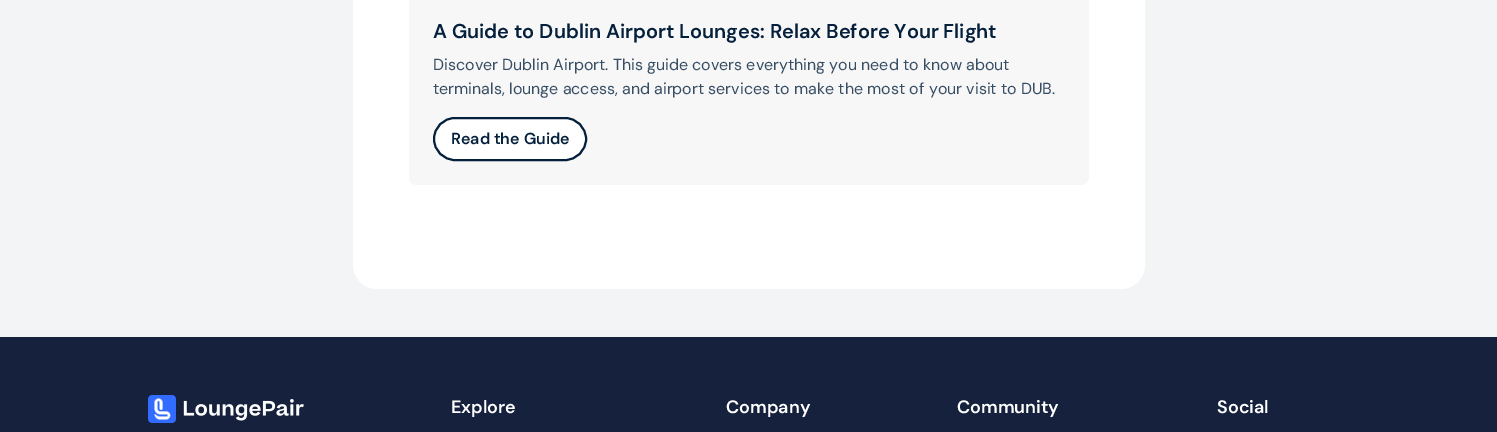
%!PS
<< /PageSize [1497 432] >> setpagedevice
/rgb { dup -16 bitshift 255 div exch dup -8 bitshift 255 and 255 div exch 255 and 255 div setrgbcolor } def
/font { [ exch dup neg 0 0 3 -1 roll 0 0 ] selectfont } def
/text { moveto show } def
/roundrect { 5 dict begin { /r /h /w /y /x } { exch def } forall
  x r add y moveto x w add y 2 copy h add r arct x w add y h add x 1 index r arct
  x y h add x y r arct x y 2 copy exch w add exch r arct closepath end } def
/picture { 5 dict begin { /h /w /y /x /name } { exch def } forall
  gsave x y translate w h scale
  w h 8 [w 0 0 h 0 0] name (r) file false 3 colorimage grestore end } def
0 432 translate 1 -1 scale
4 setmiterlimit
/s1 { /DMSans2-SemiBold 20 font 16#05203C rgb } def
/s2 { /DMSans-Regular 16 font 16#374D63 rgb } def
/s3 { /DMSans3-SemiBold 16 font 16#05203C rgb } def
/s4 { /DMSans-SemiBold 18 font 16#FFFFFF rgb } def
16#F2F4F5 rgb
0 0 1497 432 rectfill
16#FFFFFF rgb
353 -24 792 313 24 roundrect fill
16#F7F7F7 rgb
409 -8 680 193 8 roundrect fill
s1
(A Guide to Dublin Airport Lounges: Relax Before Your Flight) 433 38 text
s2
(Discover Dublin Airport. This guide covers everything you need to know about) 433 70 text
(terminals, lounge access, and airport services to make the most of your visit to DUB.) 433 94 text
16#FFFFFF rgb
434 118 152 42 21 roundrect gsave fill grestore
16#05203C rgb
2 setlinewidth
stroke
s3
(Read the Guide) 451 144 text
16#16213D rgb
0 337 1497 95 rectfill
(pic1.raw) 148 395 156 28 picture
s4
(Explore) 451 413 text
(Company) 726 413 text
(Community) 957 413 text
(Social) 1217 413 text
showpage
